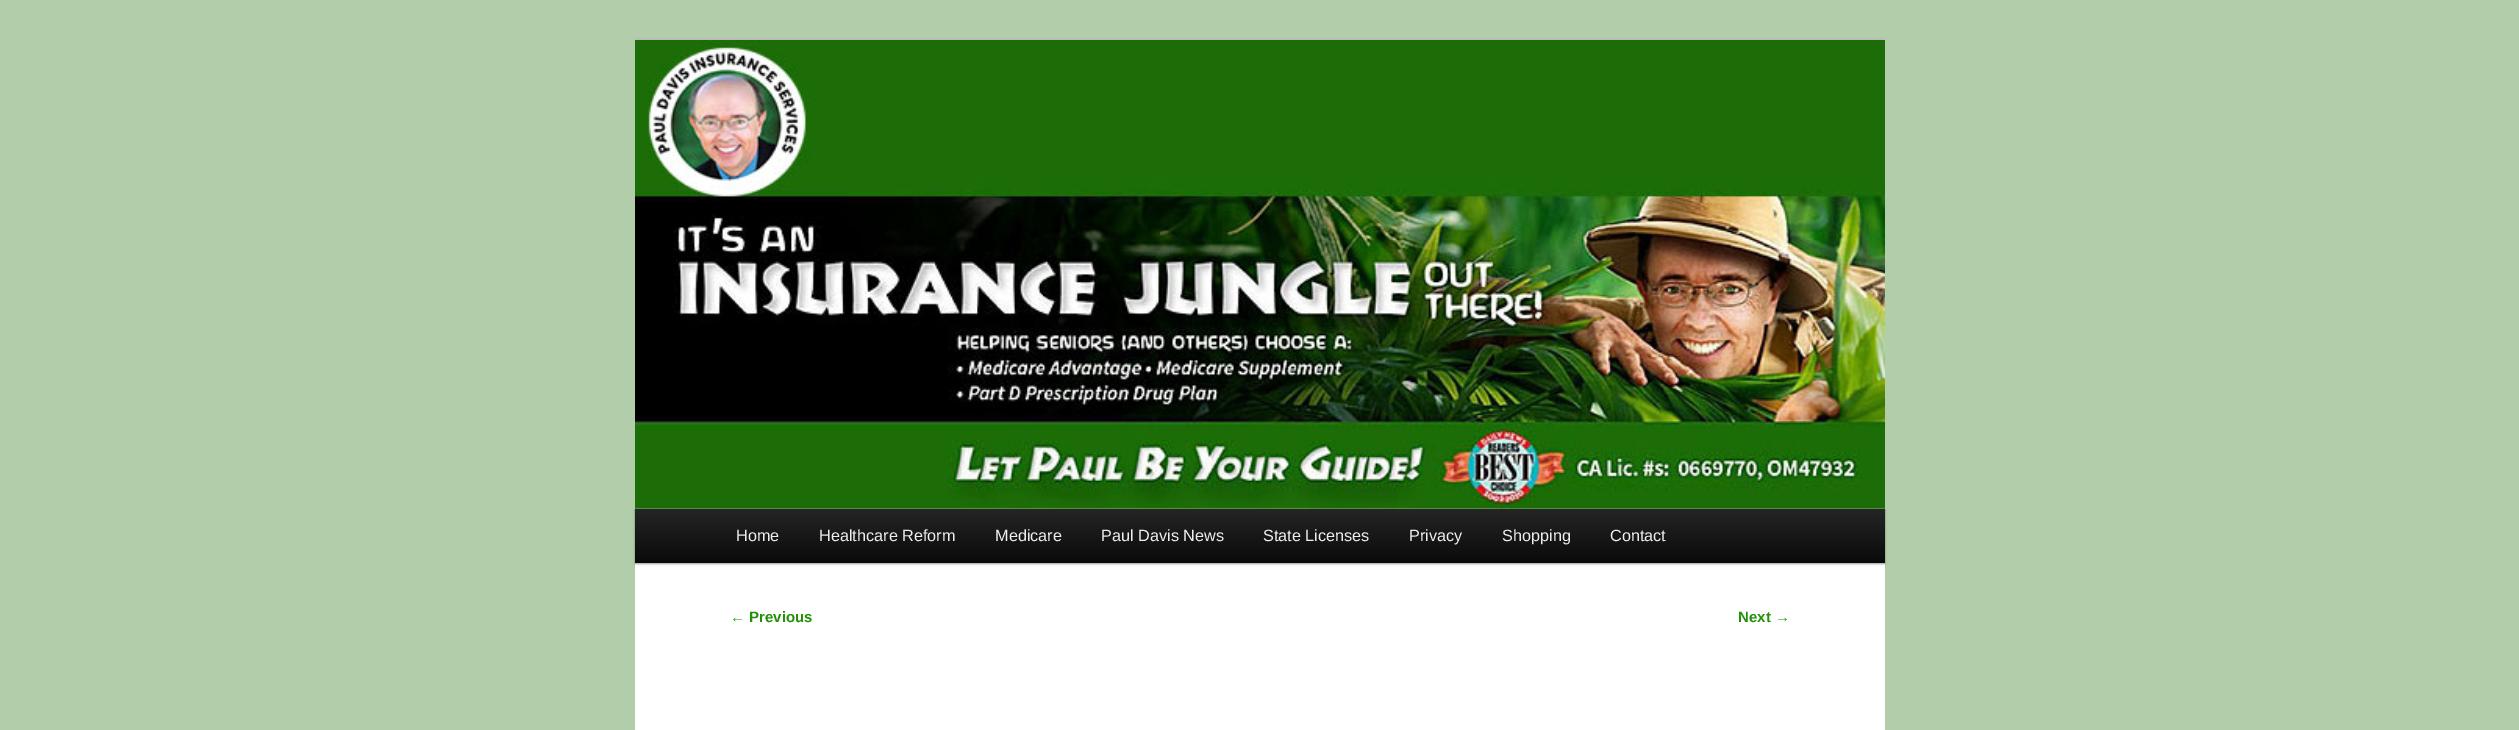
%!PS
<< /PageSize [2519 730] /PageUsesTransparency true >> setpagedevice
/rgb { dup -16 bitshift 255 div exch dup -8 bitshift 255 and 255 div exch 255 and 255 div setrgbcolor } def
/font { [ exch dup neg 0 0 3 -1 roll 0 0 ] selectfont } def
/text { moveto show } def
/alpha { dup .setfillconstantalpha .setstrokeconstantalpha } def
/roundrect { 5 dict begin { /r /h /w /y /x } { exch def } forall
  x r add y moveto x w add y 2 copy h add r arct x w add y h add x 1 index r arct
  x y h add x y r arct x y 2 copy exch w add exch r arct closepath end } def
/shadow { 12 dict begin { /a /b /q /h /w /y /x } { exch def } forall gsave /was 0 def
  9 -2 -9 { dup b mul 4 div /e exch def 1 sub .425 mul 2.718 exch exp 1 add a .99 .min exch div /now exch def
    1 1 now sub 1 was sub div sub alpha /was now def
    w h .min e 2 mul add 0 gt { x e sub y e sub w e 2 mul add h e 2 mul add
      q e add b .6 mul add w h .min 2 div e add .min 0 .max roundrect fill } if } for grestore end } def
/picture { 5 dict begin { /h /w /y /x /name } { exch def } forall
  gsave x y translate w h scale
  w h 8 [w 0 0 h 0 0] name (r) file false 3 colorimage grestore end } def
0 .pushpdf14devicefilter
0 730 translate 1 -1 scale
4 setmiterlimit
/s1 { /LiberationSans-Regular 16.25 font 16#EEEEEE rgb } def
/s2 { /LiberationSans-Regular 15 font 16#249009 rgb } def
/s3 { /LiberationSans-Bold 15 font 16#249009 rgb } def
16#B2CDAA rgb
0 0 2519 730 rectfill
16#FFFFFF rgb
635 508 1250 222 rectfill
16#BBBBBB rgb
635 38 1250 2 rectfill
16#000000 rgb
635 510 1250 54 0 1 0.4 shadow
(pic1.raw) 635 40 1250 469 picture
gsave 635 509 moveto 1885 509 lineto 1885 563 lineto 635 563 lineto closepath clip newpath
<< /ShadingType 2 /ColorSpace /DeviceRGB /Coords [1260 509 1260 563] /Extend [true true] /Function << /FunctionType 2 /Domain [0 1] /C0 [0.145 0.145 0.145] /C1 [0.039 0.039 0.039] /N 1 >> >> shfill grestore
s1
(Home) 736 541 text
(Healthcare Reform) 819 541 text
(Medicare) 995 541 text
(Paul Davis News) 1101 541 text
(State Licenses) 1263 541 text
(Privacy) 1409 541 text
(Shopping) 1502 541 text
(Contact) 1610 541 text
s2
(←) 730 622 text
s3
(Previous) 749 622 text
(Next) 1738 622 text
s2
(→) 1775 622 text
.poppdf14devicefilter showpage
